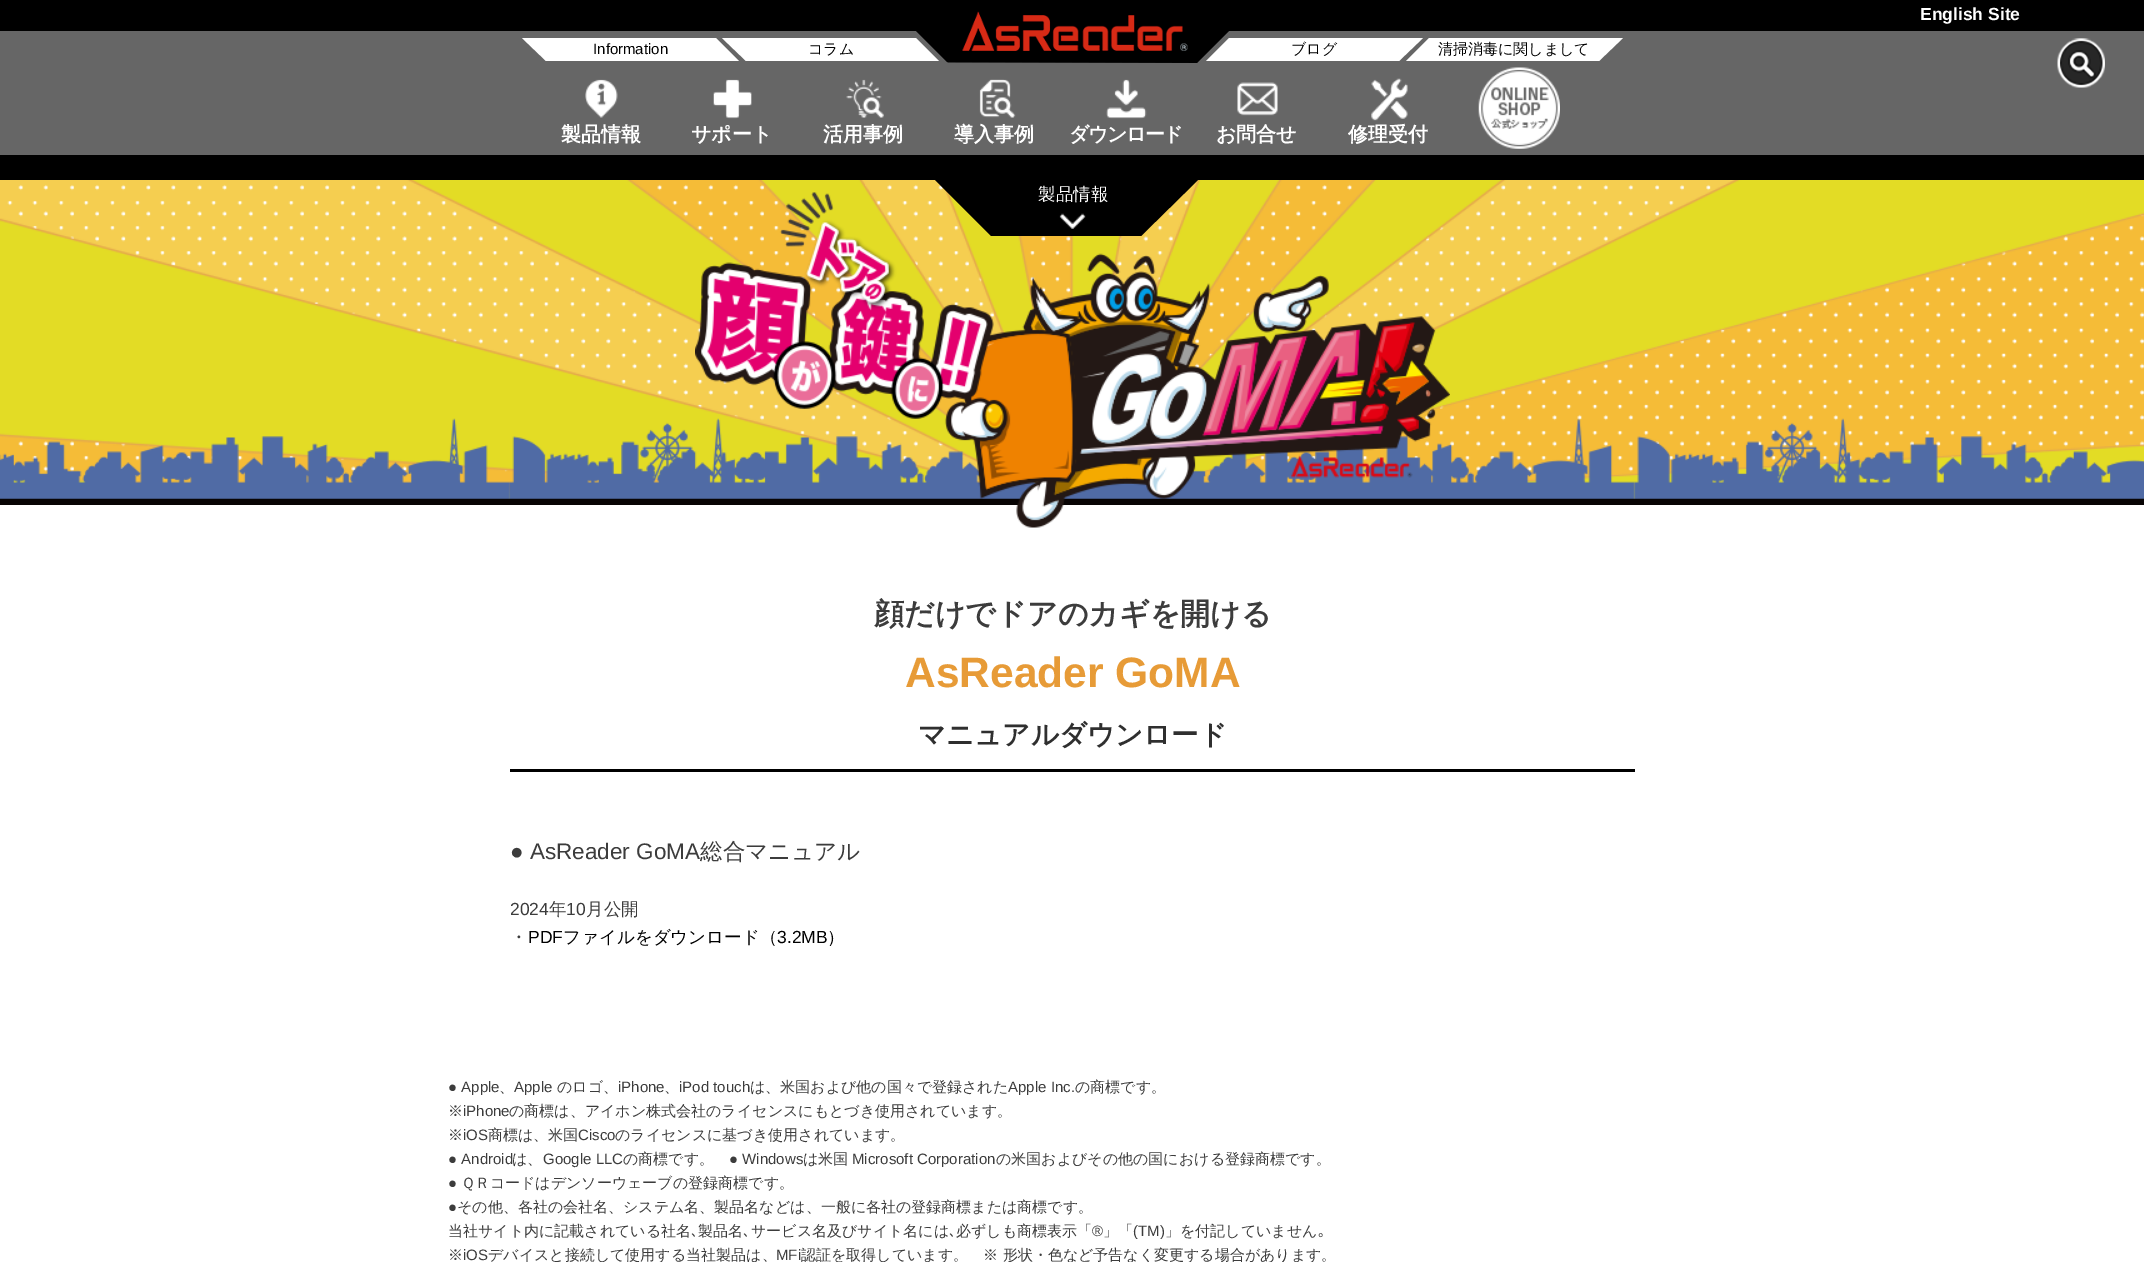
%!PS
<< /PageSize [2144 1262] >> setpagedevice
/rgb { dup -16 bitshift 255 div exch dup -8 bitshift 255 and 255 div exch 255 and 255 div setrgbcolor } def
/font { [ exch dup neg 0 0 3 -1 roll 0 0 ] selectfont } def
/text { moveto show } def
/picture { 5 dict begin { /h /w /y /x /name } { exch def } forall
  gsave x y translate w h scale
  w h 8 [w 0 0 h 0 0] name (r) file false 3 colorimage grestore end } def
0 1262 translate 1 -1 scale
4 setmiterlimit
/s1 { /LiberationSans-Bold 17.5 font 16#FFFFFF rgb } def
/s2 { /LiberationSans-Regular 15 font 16#000000 rgb } def
/s3 { /WenQuanYiZenHei-Medium 15 font 16#000000 rgb } def
/s4 { /WenQuanYiZenHei-Bold 20 font 16#FFFFFF rgb } def
/s5 { /WenQuanYiZenHei-Medium 17.5 font 16#FFFFFF rgb } def
/s6 { /WenQuanYiZenHei-Bold 30 font 16#3C3C3C rgb } def
/s7 { /LiberationSans-Bold 42.5 font 16#E79B37 rgb } def
/s8 { /WenQuanYiZenHei-Bold 27.5 font 16#2F2F2F rgb } def
/s9 { /LiberationSans-Regular 22.5 font 16#3C3C3C rgb } def
/s10 { /WenQuanYiZenHei-Medium 22.5 font 16#3C3C3C rgb } def
/s11 { /LiberationSans-Regular 17.5 font 16#3C3C3C rgb } def
/s12 { /WenQuanYiZenHei-Medium 17.5 font 16#3C3C3C rgb } def
/s13 { /LiberationSans-Regular 17.5 font 16#000000 rgb } def
/s14 { /WenQuanYiZenHei-Medium 17.5 font 16#000000 rgb } def
/s15 { /LiberationSans-Regular 15 font 16#3C3C3C rgb } def
/s16 { /WenQuanYiZenHei-Medium 15 font 16#3C3C3C rgb } def
/s17 { /IPAPGothic-Regular 15 font 16#3C3C3C rgb } def
16#FFFFFF rgb
0 0 2144 1262 rectfill
16#666666 rgb
0 31 2144 124 rectfill
16#000000 rgb
0 0 2144 31 rectfill
16#FFFFFF rgb
522 38 moveto 716 38 lineto 739 61 lineto 546 61 lineto closepath fill
722 38 moveto 916 38 lineto 939 61 lineto 746 61 lineto closepath fill
1229 38 moveto 1423 38 lineto 1399 61 lineto 1206 61 lineto closepath fill
16#000000 rgb
885 0 moveto 1260 0 lineto 1197 63 lineto 947 62 lineto closepath fill
(pic1.raw) 947 11 251 52 picture
s1
(English Site) 1920 20 text
s2
(Information) 593 54 text
s3
(コラム) 808 54 text
(ブログ) 1291 54 text
16#FFFFFF rgb
1429 38 moveto 1623 38 lineto 1599 61 lineto 1406 61 lineto closepath fill
s3
(清掃消毒に関しまして) 1438 54 text
(pic2.raw) 2057 38 48 50 picture
(pic3.raw) 585 79 33 39 picture
s4
(製品情報) 561 141 text
(pic4.raw) 713 79 39 40 picture
(サポート) 691 141 text
(pic5.raw) 846 79 38 39 picture
(活用事例) 823 141 text
(pic6.raw) 979 79 37 39 picture
(導入事例) 954 141 text
(pic7.raw) 1106 79 41 40 picture
1069 141 moveto -1.5 0 (ダウンロード) ashow
(pic8.raw) 1237 82 41 34 picture
(お問合せ) 1216 141 text
(pic9.raw) 1371 78 37 43 picture
(修理受付) 1348 141 text
(pic10.raw) 1478 67 82 82 picture
(pic11.raw) 0 180 2144 325 picture
(pic12.raw) 695 192 755 336 picture
16#000000 rgb
0 155 2144 25 rectfill
935 180 moveto 1198 180 lineto 1141 236 lineto 991 236 lineto closepath fill
s5
(製品情報) 1038 200 text
(pic13.raw) 1059 213 27 16 picture
s6
(顔だけでドアのカギを開ける) 874 624 text
s7
(AsReader GoMA) 905 687 text
16#000000 rgb
510 769 1125 3 rectfill
s8
(マニュアルダウンロード) 918 744 text
s9
(● AsReader GoMA) 510 859 text
s10
(総合マニュアル) 700 859 text
s11
(2024) 510 915 text
s12
(年) 549 915 text
s11
(10) 566 915 text
s12
(月公開) 586 915 text
(・) 510 943 text
s13
(PDF) 528 943 text
s14
(ファイルをダウンロード（) 563 943 text
s13
(3.2MB) 777 943 text
s14
(）) 827 943 text
s15
(● Apple) 448 1092 text
s16
(、) 499 1092 text
s15
(Apple) 514 1092 text
s16
(のロゴ、) 557 1092 text
s15
(iPhone) 618 1092 text
s16
(、) 664 1092 text
s15
(iPod touch) 679 1092 text
s16
(は、米国および他の国々で登録された) 750 1092 text
s15
(Apple Inc.) 1008 1092 text
s16
(の商標です。) 1075 1092 text
(※) 448 1116 text
s15
(iPhone) 463 1116 text
s16
(の商標は、アイホン株式会社のライセンスにもとづき使用されています。) 509 1116 text
(※) 448 1140 text
s15
(iOS) 463 1140 text
s16
(商標は、米国) 488 1140 text
s15
(Cisco) 578 1140 text
s16
(のライセンスに基づき使用されています。) 615 1140 text
s15
(● Android) 448 1164 text
s16
(は、) 512 1164 text
s15
(Google LLC) 543 1164 text
s16
(の商標です。) 623 1164 text
s15
(● Windows) 729 1164 text
s16
(は米国) 803 1164 text
s15
(Microsoft Corporation) 852 1164 text
s16
(の米国およびその他の国における登録商標です。) 996 1164 text
s15
(●) 448 1188 text
s16
(ＱＲコードはデンソーウェーブの登録商標です。) 461 1188 text
s15
(●) 448 1212 text
s16
(その他、各社の会社名、システム名、製品名などは、一般に各社の登録商標または商標です。) 457 1212 text
(当社サイト内に記載されている社名) 448 1236 text
s17
(､) 691 1236 text
s16
(製品名) 698 1236 text
s17
(､) 743 1236 text
s16
(サービス名及びサイト名には) 751 1236 text
s17
(､) 949 1236 text
s16
(必ずしも商標表示「) 956 1236 text
s15
(®) 1092 1236 text
s16
(」「) 1103 1236 text
s15
(\(TM\)) 1133 1236 text
s16
(」を付記していません) 1165 1236 text
s17
(｡) 1318 1236 text
s16
(※) 448 1260 text
s15
(iOS) 463 1260 text
s16
(デバイスと接続して使用する当社製品は、) 488 1260 text
s15
(MFi) 776 1260 text
s16
(認証を取得しています。　※ 形状・色など予告なく変更する場合があります。) 801 1260 text
showpage
